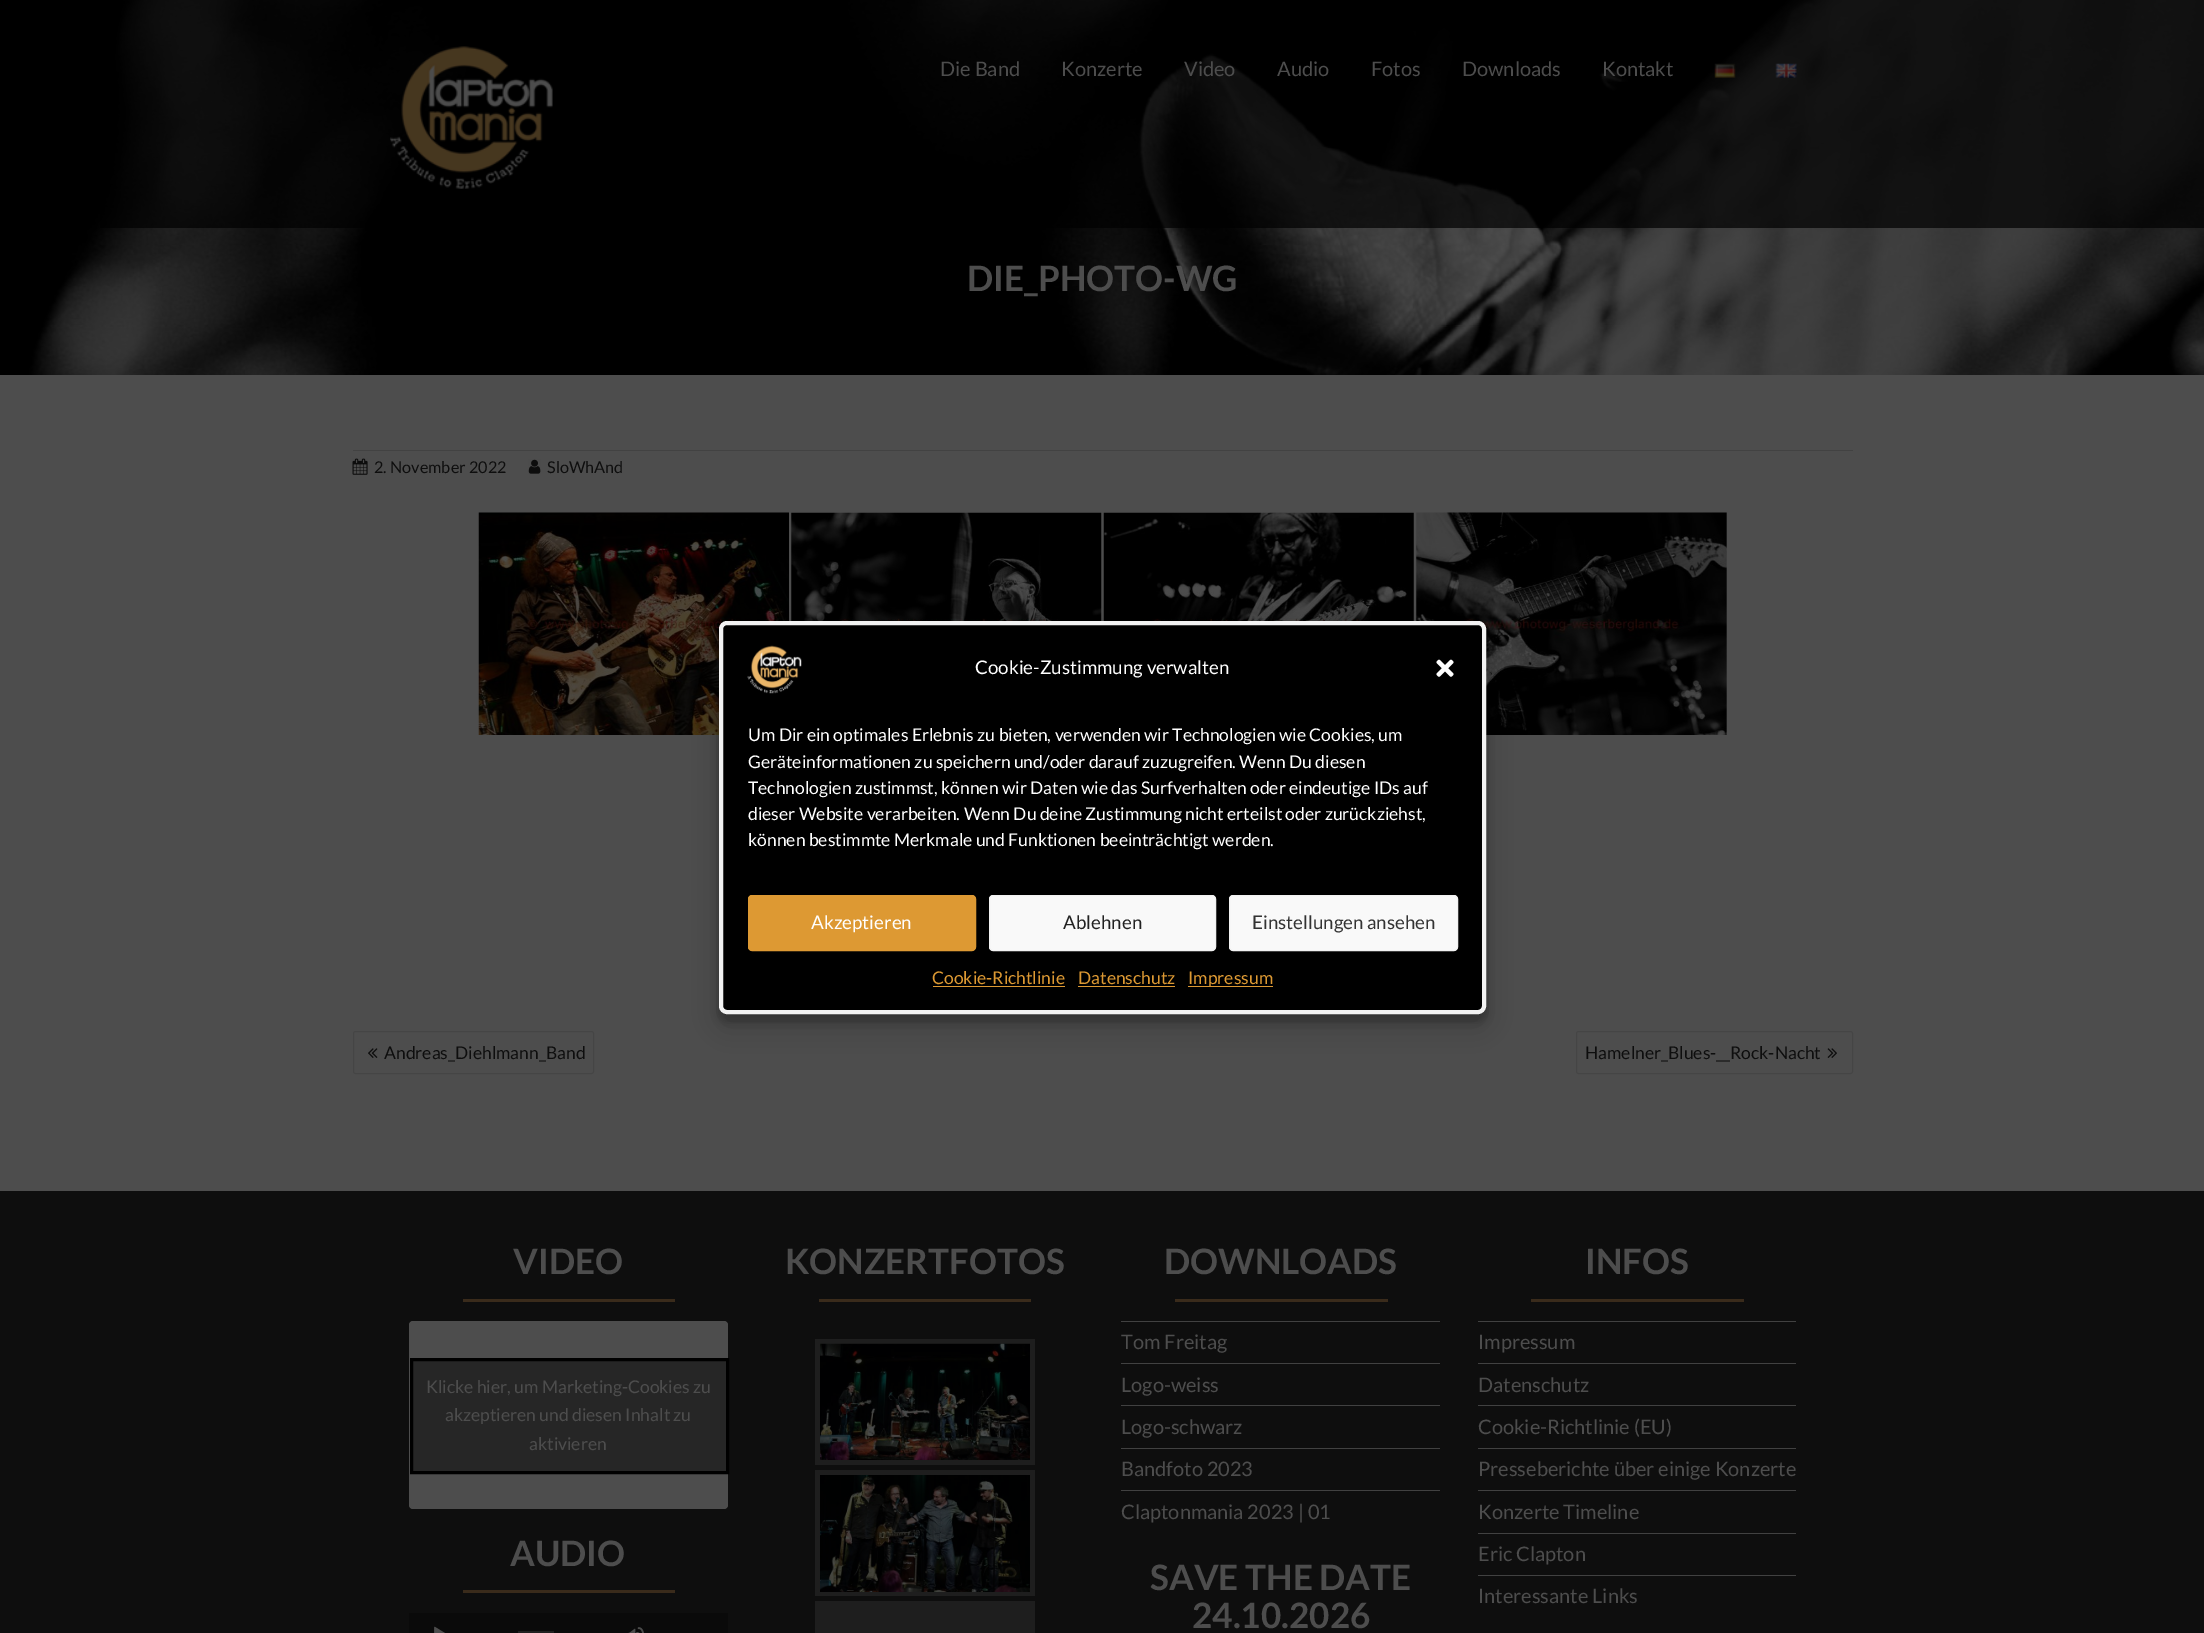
%!PS
<< /PageSize [2204 1633] /PageUsesTransparency true >> setpagedevice
/rgb { dup -16 bitshift 255 div exch dup -8 bitshift 255 and 255 div exch 255 and 255 div setrgbcolor } def
/font { [ exch dup neg 0 0 3 -1 roll 0 0 ] selectfont } def
/text { moveto show } def
/alpha { dup .setfillconstantalpha .setstrokeconstantalpha } def
/roundrect { 5 dict begin { /r /h /w /y /x } { exch def } forall
  x r add y moveto x w add y 2 copy h add r arct x w add y h add x 1 index r arct
  x y h add x y r arct x y 2 copy exch w add exch r arct closepath end } def
/shadow { 12 dict begin { /a /b /q /h /w /y /x } { exch def } forall gsave /was 0 def
  9 -2 -9 { dup b mul 4 div /e exch def 1 sub .425 mul 2.718 exch exp 1 add a .99 .min exch div /now exch def
    1 1 now sub 1 was sub div sub alpha /was now def
    w h .min e 2 mul add 0 gt { x e sub y e sub w e 2 mul add h e 2 mul add
      q e add b .6 mul add w h .min 2 div e add .min 0 .max roundrect fill } if } for grestore end } def
/picture { 5 dict begin { /h /w /y /x /name } { exch def } forall
  gsave x y translate w h scale
  w h 8 [w 0 0 h 0 0] name (r) file false 3 colorimage grestore end } def
0 .pushpdf14devicefilter
0 1633 translate 1 -1 scale
4 setmiterlimit
/s1 { /Lato-Regular 20 font 16#4D4D4D rgb } def
/s2 { /Lato-Bold 35 font 16#4D4D4D rgb } def
/s3 { /Lato-Regular 16.25 font 16#0E0E0E rgb } def
/s4 { /Lato-Regular 17.5 font 16#0E0E0E rgb } def
/s5 { /Lato-Regular 17.5 font 16#4D4D4D rgb } def
/s6 { /Lato-Regular 18.75 font 16#FFFFFF rgb } def
/s7 { /Lato-Regular 17.5 font 16#FFFFFF rgb } def
/s8 { /Lato-Regular 18.75 font 16#222222 rgb } def
/s9 { /Lato-Regular 18.75 font 16#333333 rgb } def
/s10 { /Lato-Regular 17.5 font 16#DD9933 rgb } def
16#4D4D4D rgb
0 0 2204 1633 rectfill
(pic4.raw) 0 0 2204 375 picture
0.7 alpha
16#000000 rgb
100 0 2104 228 rectfill
1 alpha
(pic1.raw) 390 46 163 143 picture
s1
(Die Band) 940 76 text
(Konzerte) 1061 76 text
(Video) 1184 76 text
(Audio) 1277 76 text
(Fotos) 1371 76 text
(Downloads) 1462 76 text
(Kontakt) 1602 76 text
(pic2.raw) 1714 63 22 15 picture
(pic3.raw) 1775 63 22 15 picture
s2
(DIE_PHOTO-WG) 967 291 text
16#424242 rgb
353 450 1500 1 rectfill
(pic5.raw) 352 458 16 17 picture
s3
(2. November 2022) 374 473 text
(pic6.raw) 528 459 13 15 picture
(SloWhAnd) 547 473 text
(pic7.raw) 478 512 311 223 picture
(pic8.raw) 791 512 311 109 picture
(pic9.raw) 1103 512 311 109 picture
(pic10.raw) 1416 512 311 223 picture
16#454545 rgb
353.5 1031.5 240 42 2 roundrect stroke
(pic11.raw) 368 1048 10 10 picture
s4
(Andreas_Diehlmann_Band) 384 1059 text
16#454545 rgb
1576.5 1031.5 276 42 2 roundrect stroke
s4
(Hamelner_Blues-__Rock-Nacht) 1585 1059 text
(pic12.raw) 1827 1048 10 10 picture
0 1191 2204 442 rectfill
s2
(VIDEO) 513 1274 text
16#3A2B1B rgb
463 1299 212 3 rectfill
16#4D4D4D rgb
409 1321 319 188 4 roundrect fill
0.5 alpha
16#000000 rgb
411.5 1359.5 moveto 727.5 1359.5 lineto 727.5 1472.5 lineto 411.5 1472.5 lineto closepath fill
1 alpha
3 setlinewidth
411.5 1359.5 moveto 727.5 1359.5 lineto 727.5 1472.5 lineto 411.5 1472.5 lineto closepath stroke
s5
(Klicke hier, um Marketing-Cookies zu) 426 1393 text
(akzeptieren und diesen Inhalt zu) 445 1421 text
(aktivieren) 529 1450 text
s2
(AUDIO) 510 1566 text
16#3A2B1B rgb
463 1590 212 3 rectfill
16#0A0A0A rgb
409 1613 319 20 rectfill
(pic13.raw) 434 1626 11 7 picture
16#202020 rgb
518 1631 36 2 rectfill
(pic14.raw) 628 1627 16 6 picture
s2
(KONZERTFOTOS) 785 1274 text
16#3A2B1B rgb
819 1299 212 3 rectfill
16#1E1E1E rgb
815 1339 220 126 rectfill
(pic15.raw) 820 1343 210 117 picture
815 1470 220 126 rectfill
(pic16.raw) 820 1475 210 117 picture
815 1601 220 32 rectfill
s2
(DOWNLOADS) 1164 1274 text
16#3A2B1B rgb
1175 1299 213 3 rectfill
16#414141 rgb
1121 1321 319 1 rectfill
s1
(Tom Freitag) 1121 1349 text
16#414141 rgb
1121 1363 319 1 rectfill
s1
(Logo-weiss) 1121 1392 text
16#414141 rgb
1121 1405 319 1 rectfill
s1
(Logo-schwarz) 1121 1434 text
16#414141 rgb
1121 1448 319 1 rectfill
s1
(Bandfoto 2023) 1121 1476 text
16#414141 rgb
1121 1490 319 1 rectfill
s1
(Claptonmania 2023 | 01) 1121 1519 text
s2
(SAVE THE DATE) 1150 1590 text
(24.10.2026) 1192 1628 text
(INFOS) 1585 1274 text
16#3A2B1B rgb
1531 1299 213 3 rectfill
16#414141 rgb
1478 1321 318 1 rectfill
s1
(Impressum) 1478 1349 text
16#414141 rgb
1478 1363 318 1 rectfill
s1
(Datenschutz) 1478 1392 text
16#414141 rgb
1478 1405 318 1 rectfill
s1
(Cookie-Richtlinie \(EU\)) 1478 1434 text
16#414141 rgb
1478 1448 318 1 rectfill
s1
(Presseberichte über einige Konzerte) 1478 1476 text
16#414141 rgb
1478 1490 318 1 rectfill
s1
(Konzerte Timeline) 1478 1519 text
16#414141 rgb
1478 1533 318 1 rectfill
s1
(Eric Clapton) 1478 1561 text
16#414141 rgb
1478 1575 318 1 rectfill
s1
(Interessante Links) 1478 1603 text
16#000000 rgb
719 629 767 392 8 4 0.23 shadow
719 634 767 392 8 12.5 0.19 shadow
721 623 763 389 6 roundrect gsave fill grestore
16#F2F2F2 rgb
4 setlinewidth
stroke
(pic17.raw) 747 645 55 49 picture
s6
(Cookie-Zustimmung verwalten) 975 674 text
(pic18.raw) 1436 659 18 18 picture
s7
(Um Dir ein optimales Erlebnis zu bieten, verwenden wir Technologien wie Cookies, um) 748 741 text
(Geräteinformationen zu speichern und/oder darauf zuzugreifen. Wenn Du diesen) 748 768 text
(Technologien zustimmst, können wir Daten wie das Surfverhalten oder eindeutige IDs auf) 748 794 text
(dieser Website verarbeiten. Wenn Du deine Zustimmung nicht erteilst oder zurückziehst,) 748 820 text
(können bestimmte Merkmale und Funktionen beeinträchtigt werden.) 748 846 text
16#DD9933 rgb
748.5 895.5 227 55 3.5 roundrect gsave fill grestore
1 setlinewidth
stroke
s6
(Akzeptieren) 811 929 text
16#F9F9F9 rgb
989.5 895.5 226 55 3.5 roundrect gsave fill grestore
16#F2F2F2 rgb
stroke
s8
(Ablehnen) 1063 929 text
16#F9F9F9 rgb
1229.5 895.5 228 55 3.5 roundrect gsave fill grestore
16#F2F2F2 rgb
stroke
s9
(Einstellungen ansehen) 1252 929 text
s10
(Cookie-Richtlinie) 932 984 text
933 986 132 1 rectfill
(Datenschutz) 1078 984 text
1078 986 97 1 rectfill
1188 986 85 1 rectfill
(Impressum) 1188 984 text
.poppdf14devicefilter showpage
